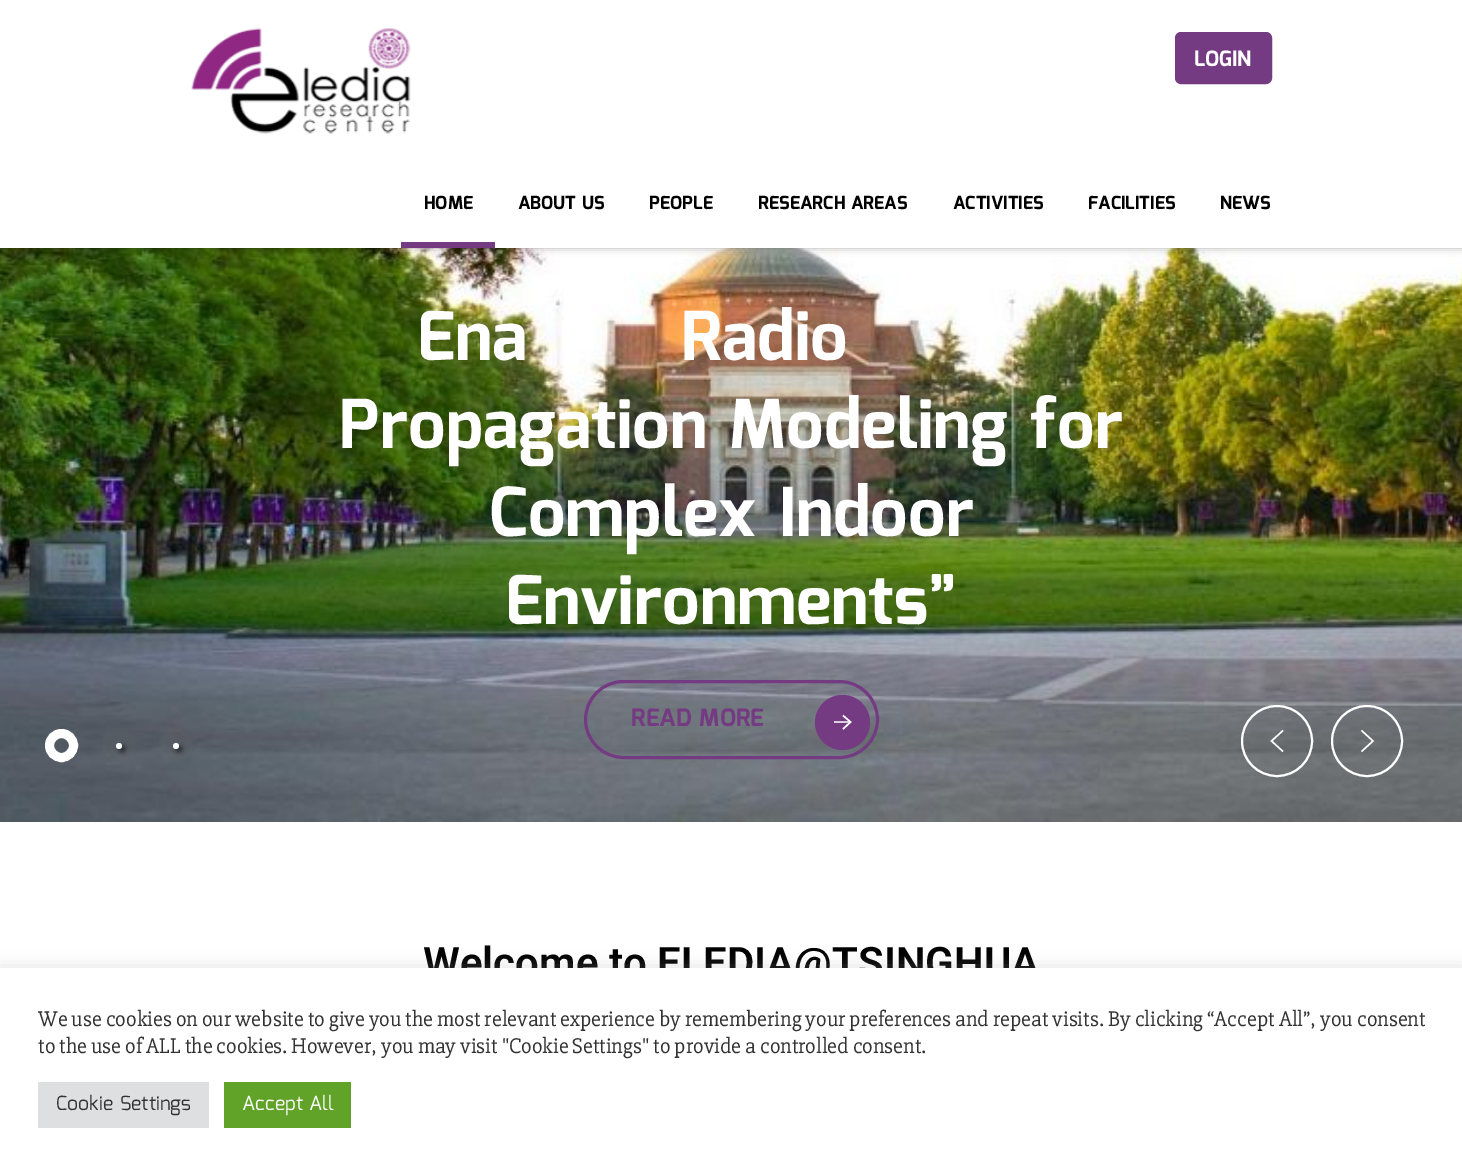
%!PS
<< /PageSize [1462 1172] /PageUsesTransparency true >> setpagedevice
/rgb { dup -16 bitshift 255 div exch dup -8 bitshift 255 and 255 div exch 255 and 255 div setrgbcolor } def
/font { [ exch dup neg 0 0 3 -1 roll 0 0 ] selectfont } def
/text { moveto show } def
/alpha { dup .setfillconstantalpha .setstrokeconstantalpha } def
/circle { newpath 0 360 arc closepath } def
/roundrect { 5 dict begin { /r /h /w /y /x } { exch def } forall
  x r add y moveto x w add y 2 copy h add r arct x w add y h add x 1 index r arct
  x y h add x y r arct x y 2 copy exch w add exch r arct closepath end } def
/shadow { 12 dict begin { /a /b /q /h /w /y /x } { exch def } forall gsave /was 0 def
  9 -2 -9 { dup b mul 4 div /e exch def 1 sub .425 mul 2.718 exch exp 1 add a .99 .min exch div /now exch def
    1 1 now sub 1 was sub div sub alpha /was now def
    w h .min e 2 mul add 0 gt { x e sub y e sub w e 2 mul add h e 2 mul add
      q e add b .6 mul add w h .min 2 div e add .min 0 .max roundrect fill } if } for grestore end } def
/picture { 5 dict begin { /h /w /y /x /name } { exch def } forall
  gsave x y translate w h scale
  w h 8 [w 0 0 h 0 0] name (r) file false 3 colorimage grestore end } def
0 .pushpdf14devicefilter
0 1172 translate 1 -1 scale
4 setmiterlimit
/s1 { /Mina-Bold 21 font 16#FFFFFF rgb } def
/s2 { /Mina-Bold 18 font 16#000000 rgb } def
/s3 { /Mina-Bold 67.5 font 16#FFFFFF rgb } def
/s4 { /Mina-Bold 24 font 16#753B82 rgb } def
/s5 { /Roboto-SemiBold 42 font 16#000000 rgb } def
/s6 { /Slabo27px-Regular 22 font 16#333333 rgb } def
/s7 { /Mina-Regular 19.5 font 16#333333 rgb } def
/s8 { /Mina-Regular 19.5 font 16#FFFFFF rgb } def
16#FFFFFF rgb
0 0 1462 1172 rectfill
(pic2.raw) 0 248 1462 574 picture
16#000000 rgb
2 0 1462 248 0 4 0.3 shadow
16#FFFFFF rgb
0 0 1462 248 rectfill
(pic1.raw) 191 28 221 106 picture
16#753B82 rgb
1176 33 95 50 5 roundrect gsave fill grestore
2 setlinewidth
stroke
s1
(LOGIN) 1194 66 text
16#753B82 rgb
401 242 94 6 rectfill
s2
(HOME) 424 209 text
(ABOUT US) 518 209 text
(PEOPLE) 649 209 text
(RESEARCH AREAS) 758 209 text
(ACTIVITIES) 953 209 text
(FACILITIES) 1088 209 text
(NEWS) 1220 209 text
s3
(Ena) 417 360 text
(Radio) 681 360 text
(Propagation Modeling for) 339 448 text
(Complex Indoor) 489 536 text
(Environments”) 505 624 text
16#753B82 rgb
3 setlinewidth
585.5 681.5 292 76 38 roundrect stroke
s4
(READ MORE) 631 726 text
842.5 722.5 27.5 circle fill
16#FFFFFF rgb
1.5 setlinewidth
843 715.5 moveto 850.5 722 lineto 843 729 lineto stroke
0.75 alpha
834 721 17 2 rectfill
gsave
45 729 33 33 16.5 roundrect clip newpath
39 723 moveto 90 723 lineto 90 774 lineto 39 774 lineto closepath 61.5 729 moveto 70.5 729 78 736.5 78 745.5 curveto 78 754.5 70.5 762 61.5 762 curveto 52.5 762 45 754.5 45 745.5 curveto 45 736.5 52.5 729 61.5 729 curveto closepath eoclip newpath
1 alpha
16#000000 rgb
48 732 33 33 16.5 2.5 0.5 shadow
grestore
1 alpha
9 setlinewidth
61.5 745.5 12 circle stroke
0.2 alpha
16#666666 rgb
118.5 745.5 16.5 circle fill
1 alpha
16#000000 rgb
119 746 6 6 3 2.5 0.5 shadow
16#FFFFFF rgb
119 746 3 circle fill
0.2 alpha
16#666666 rgb
175.5 745.5 16.5 circle fill
1 alpha
16#000000 rgb
176 746 6 6 3 2.5 0.5 shadow
16#FFFFFF rgb
176 746 3 circle fill
2 setlinewidth
1277 741 35 circle stroke
1.4 setlinewidth
1283 730.5 moveto 1271.5 741 lineto 1283 751.5 lineto stroke
2 setlinewidth
1367 741 35 circle stroke
1.4 setlinewidth
1361.5 751.5 moveto 1373 741 lineto 1361.5 730.5 lineto stroke
s5
(Welcome to ELEDIA@TSINGHUA) 423 977 text
16#ACABAB rgb
0 966 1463 206 0 7.5 0.3 shadow
16#FFFFFF rgb
0 968 1462 204 rectfill
s6
(We use cookies on our website to give you the most relevant experience by remembering your preferences and repeat visits. By clicking “Accept All”, you consent) 38 1026 text
(to the use of ALL the cookies. However, you may visit "Cookie Settings" to provide a controlled consent.) 38 1053 text
16#DEDFE0 rgb
38 1082 171 46 rectfill
s7
(Cookie Settings) 56 1110 text
16#61A229 rgb
224 1082 127 46 rectfill
s8
(Accept All) 242 1110 text
.poppdf14devicefilter showpage
